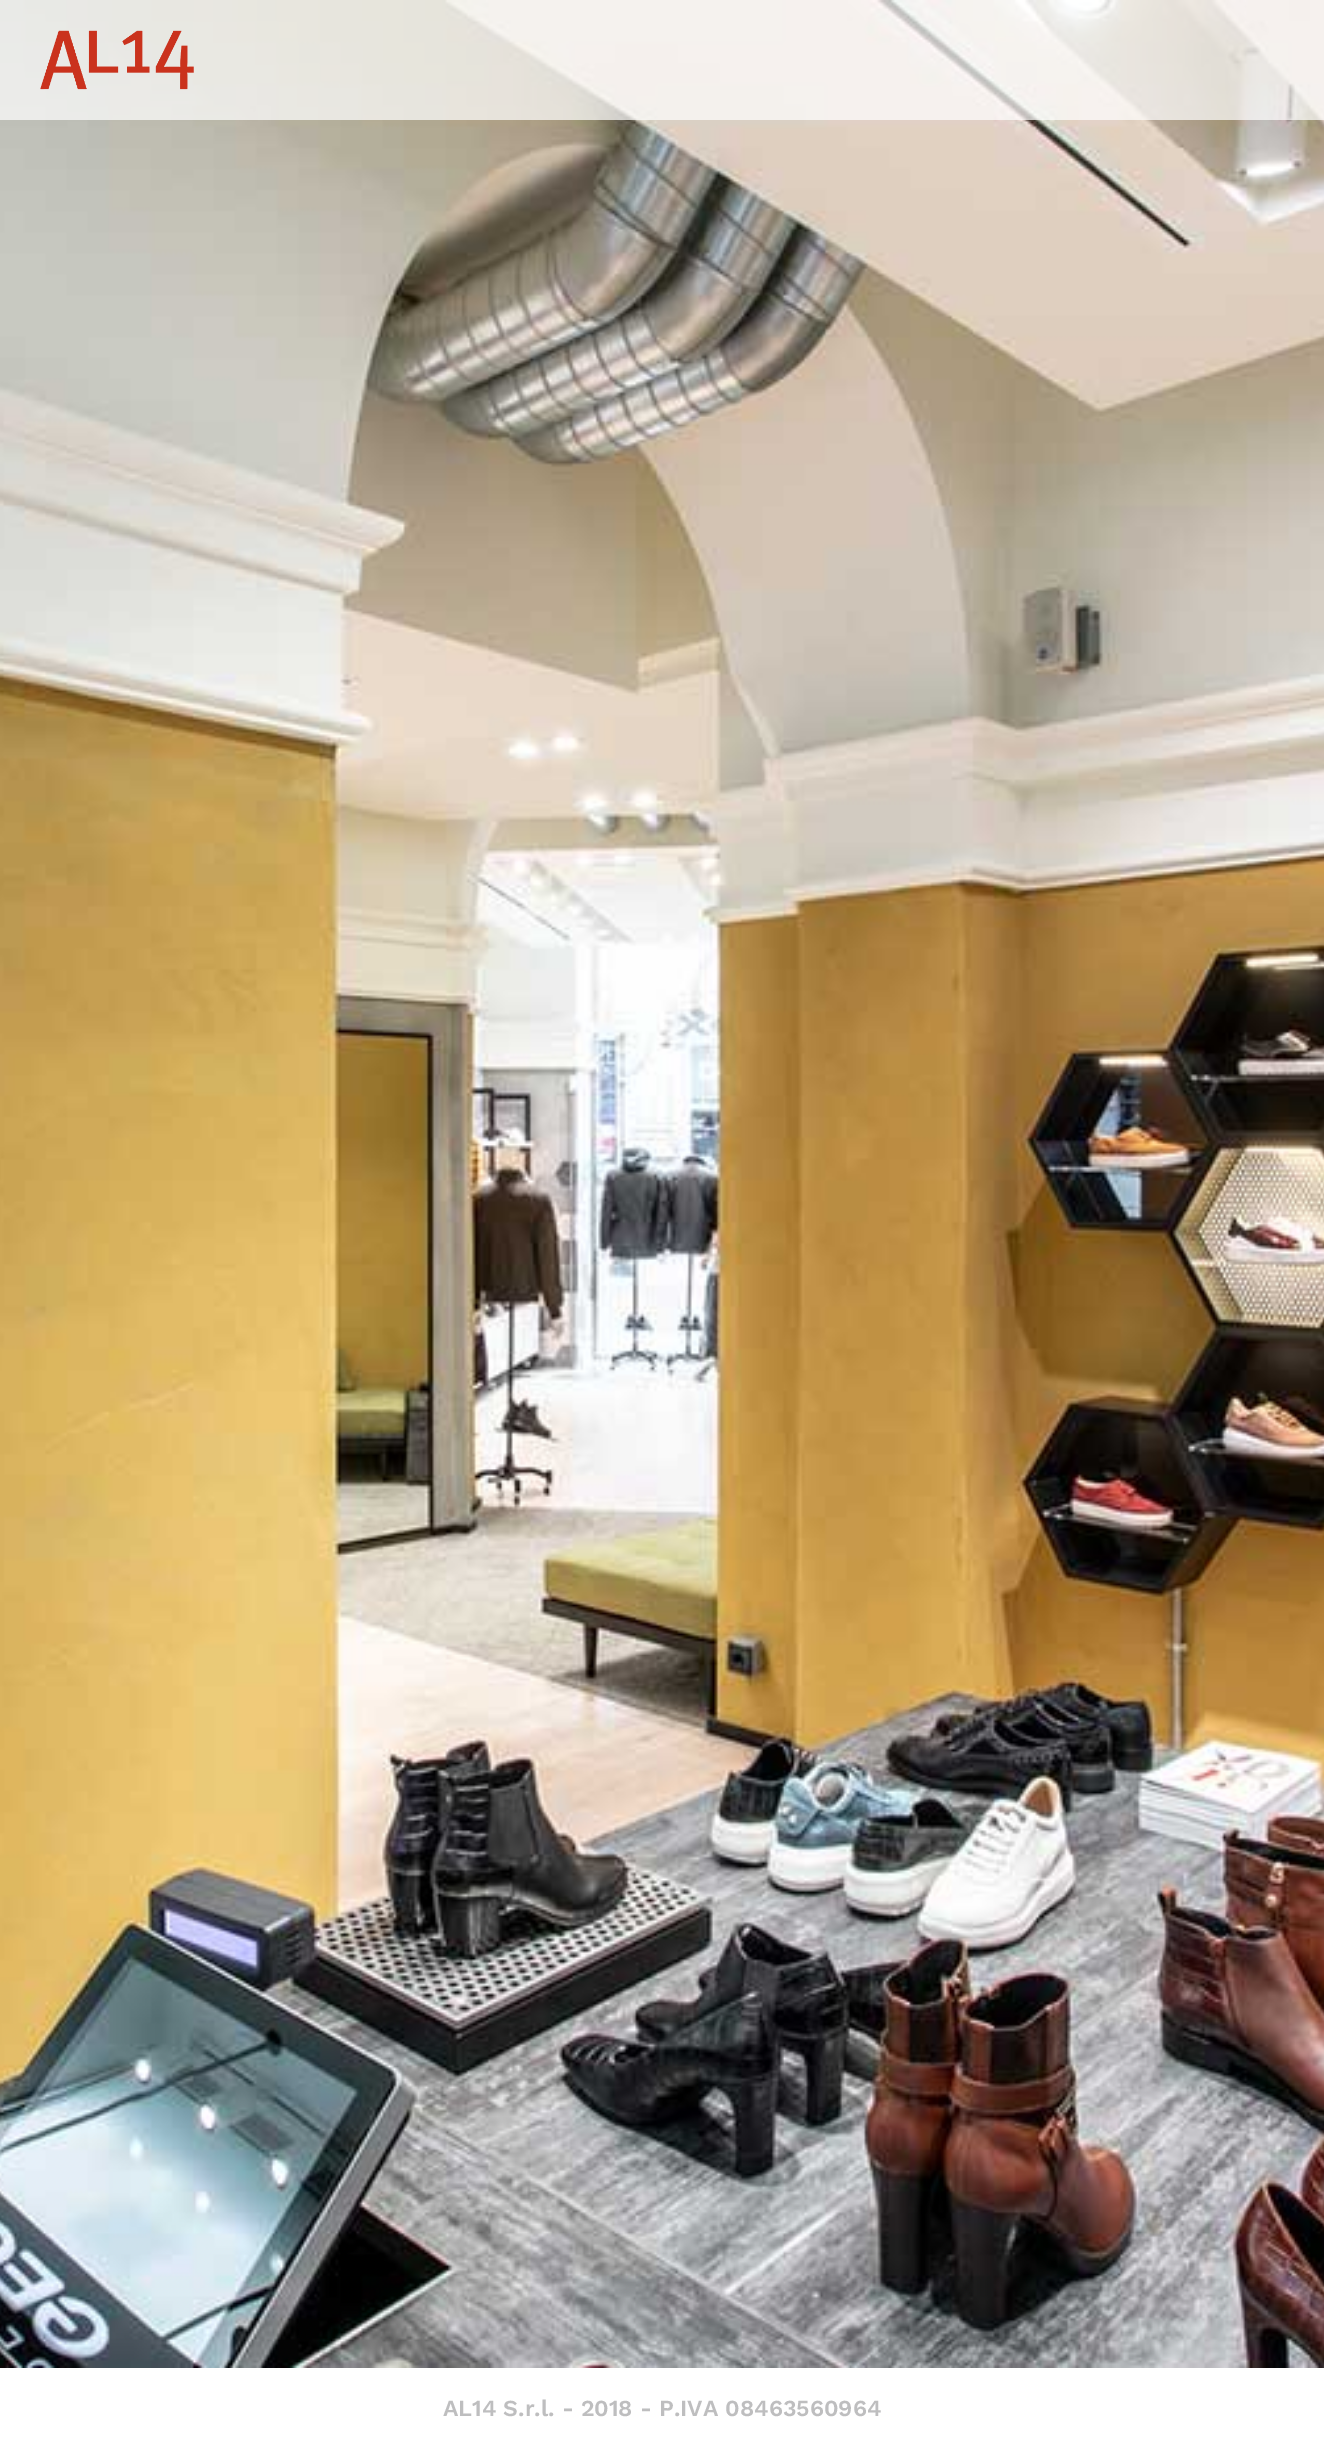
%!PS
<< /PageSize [1324 2448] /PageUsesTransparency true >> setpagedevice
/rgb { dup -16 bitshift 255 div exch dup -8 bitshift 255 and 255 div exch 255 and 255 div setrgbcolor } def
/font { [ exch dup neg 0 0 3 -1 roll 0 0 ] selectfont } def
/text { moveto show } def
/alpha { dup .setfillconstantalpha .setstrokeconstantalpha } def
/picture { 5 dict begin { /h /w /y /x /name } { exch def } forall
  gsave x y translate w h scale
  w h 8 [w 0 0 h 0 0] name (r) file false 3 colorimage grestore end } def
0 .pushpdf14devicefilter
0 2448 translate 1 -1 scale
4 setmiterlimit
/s1 { /WorkSans-SemiBold 23 font 16#BEBEBF rgb } def
16#FFFFFF rgb
0 0 1324 2448 rectfill
(pic1.raw) 0 0 1324 2368 picture
0.7 alpha
0 0 1324 120 rectfill
1 alpha
(pic2.raw) 40 30 154 60 picture
s1
(AL14 S.r.l. - 2018 - P.IVA 08463560964) 443 2416 text
.poppdf14devicefilter showpage
